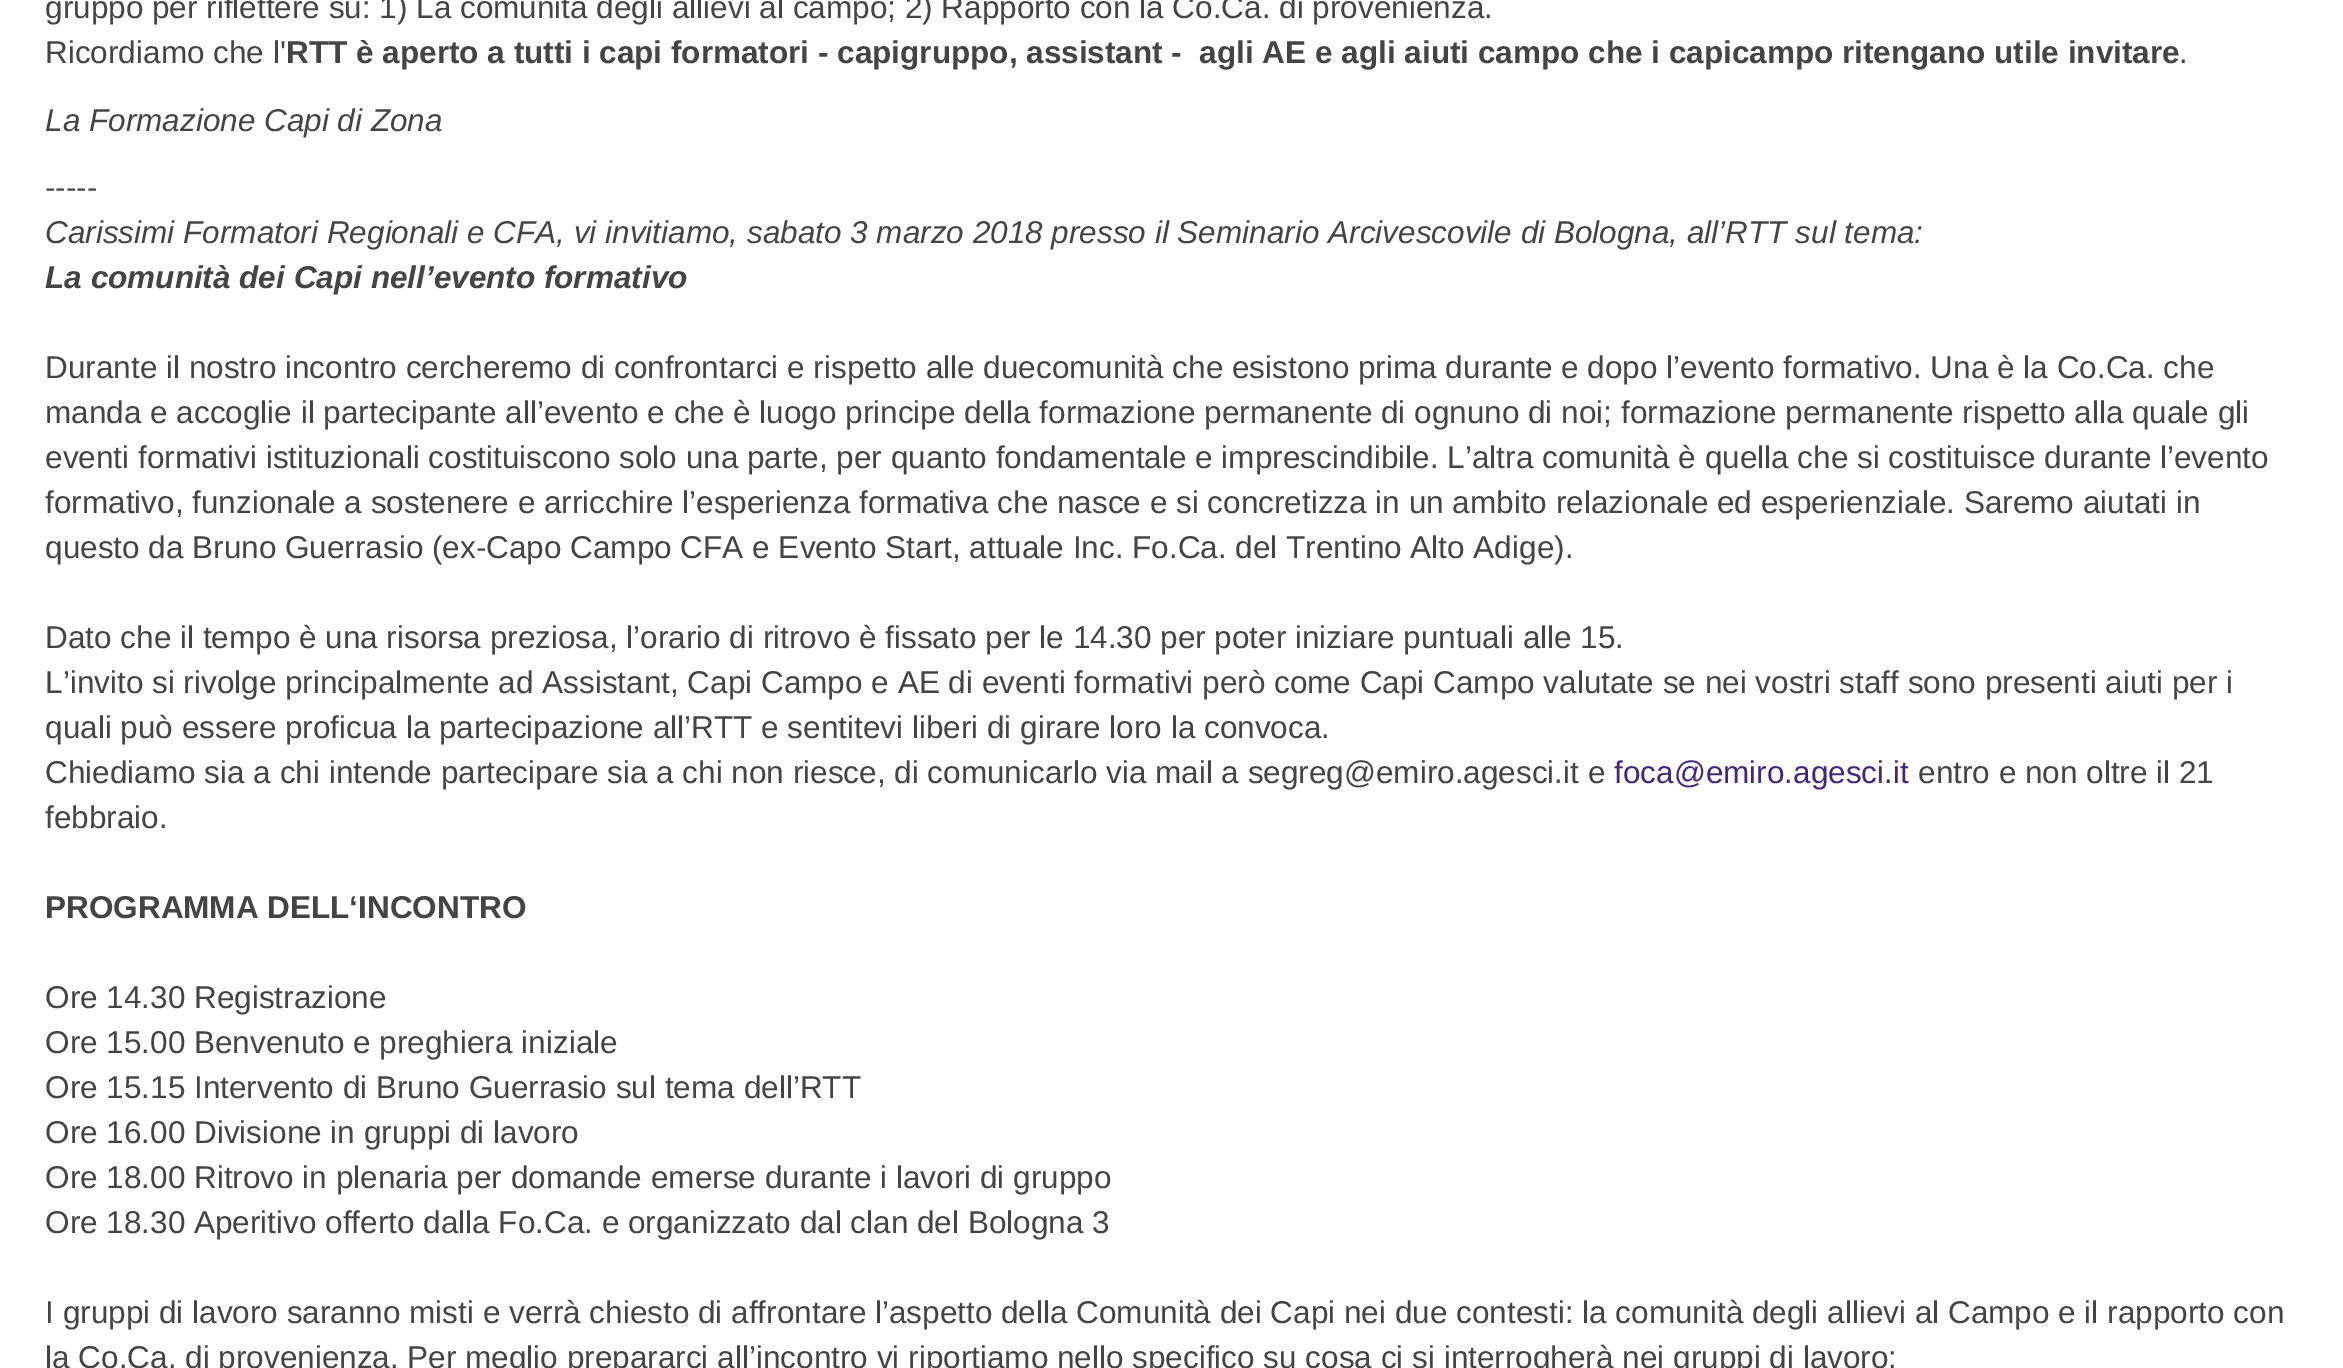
%!PS
<< /PageSize [2343 1368] >> setpagedevice
/rgb { dup -16 bitshift 255 div exch dup -8 bitshift 255 and 255 div exch 255 and 255 div setrgbcolor } def
/font { [ exch dup neg 0 0 3 -1 roll 0 0 ] selectfont } def
/text { moveto show } def
0 1368 translate 1 -1 scale
4 setmiterlimit
/s1 { /LiberationSans-Regular 31.5 font 16#444444 rgb } def
/s2 { /LiberationSans-Bold 31.5 font 16#444444 rgb } def
/s3 { /LiberationSans-Italic 31.5 font 16#444444 rgb } def
/s4 { /LiberationSans-BoldItalic 31.5 font 16#444444 rgb } def
/s5 { /LiberationSans-Regular 31.5 font 16#462678 rgb } def
16#FFFFFF rgb
0 0 2343 1368 rectfill
s1
(gruppo per riflettere su: 1\) La comunità degli allievi al campo; 2\) Rapporto con la Co.Ca. di provenienza.) 45 18 text
(Ricordiamo che l') 45 63 text
s2
(RTT è aperto a tutti i capi formatori - capigruppo, assistant -  agli AE e agli aiuti campo che i capicampo ritengano utile invitare) 286 63 text
s1
(.) 2179 63 text
s3
(La Formazione Capi di Zona) 45 131 text
s1
(-----) 45 198 text
s3
(Carissimi Formatori Regionali e CFA, vi invitiamo, sabato 3 marzo 2018 presso il Seminario Arcivescovile di Bologna, all’RTT sul tema:) 45 243 text
s4
(La comunità dei Capi nell’evento formativo) 45 288 text
s1
(Durante il nostro incontro cercheremo di confrontarci e rispetto alle duecomunità che esistono prima durante e dopo l’evento formativo. Una è la Co.Ca. che) 45 378 text
(manda e accoglie il partecipante all’evento e che è luogo principe della formazione permanente di ognuno di noi; formazione permanente rispetto alla quale gli) 45 423 text
(eventi formativi istituzionali costituiscono solo una parte, per quanto fondamentale e imprescindibile. L’altra comunità è quella che si costituisce durante l’evento) 45 468 text
(formativo, funzionale a sostenere e arricchire l’esperienza formativa che nasce e si concretizza in un ambito relazionale ed esperienziale. Saremo aiutati in) 45 513 text
(questo da Bruno Guerrasio \(ex-Capo Campo CFA e Evento Start, attuale Inc. Fo.Ca. del Trentino Alto Adige\).) 45 558 text
(Dato che il tempo è una risorsa preziosa, l’orario di ritrovo è fissato per le 14.30 per poter iniziare puntuali alle 15.) 45 648 text
(L’invito si rivolge principalmente ad Assistant, Capi Campo e AE di eventi formativi però come Capi Campo valutate se nei vostri staff sono presenti aiuti per i) 45 693 text
(quali può essere proficua la partecipazione all’RTT e sentitevi liberi di girare loro la convoca.) 45 738 text
(Chiediamo sia a chi intende partecipare sia a chi non riesce, di comunicarlo via mail a segreg@emiro.agesci.it e) 45 783 text
s5
(foca@emiro.agesci.it) 1614 783 text
s1
(entro e non oltre il 21) 1918 783 text
(febbraio.) 45 828 text
s2
(PROGRAMMA DELL‘INCONTRO) 45 918 text
s1
(Ore 14.30 Registrazione) 45 1008 text
(Ore 15.00 Benvenuto e preghiera iniziale) 45 1053 text
(Ore 15.15 Intervento di Bruno Guerrasio sul tema dell’RTT) 45 1098 text
(Ore 16.00 Divisione in gruppi di lavoro) 45 1143 text
(Ore 18.00 Ritrovo in plenaria per domande emerse durante i lavori di gruppo) 45 1188 text
(Ore 18.30 Aperitivo offerto dalla Fo.Ca. e organizzato dal clan del Bologna 3) 45 1233 text
(I gruppi di lavoro saranno misti e verrà chiesto di affrontare l’aspetto della Comunità dei Capi nei due contesti: la comunità degli allievi al Campo e il rapporto con) 45 1323 text
(la Co.Ca. di provenienza. Per meglio prepararci all’incontro vi riportiamo nello specifico su cosa ci si interrogherà nei gruppi di lavoro:) 45 1368 text
showpage
